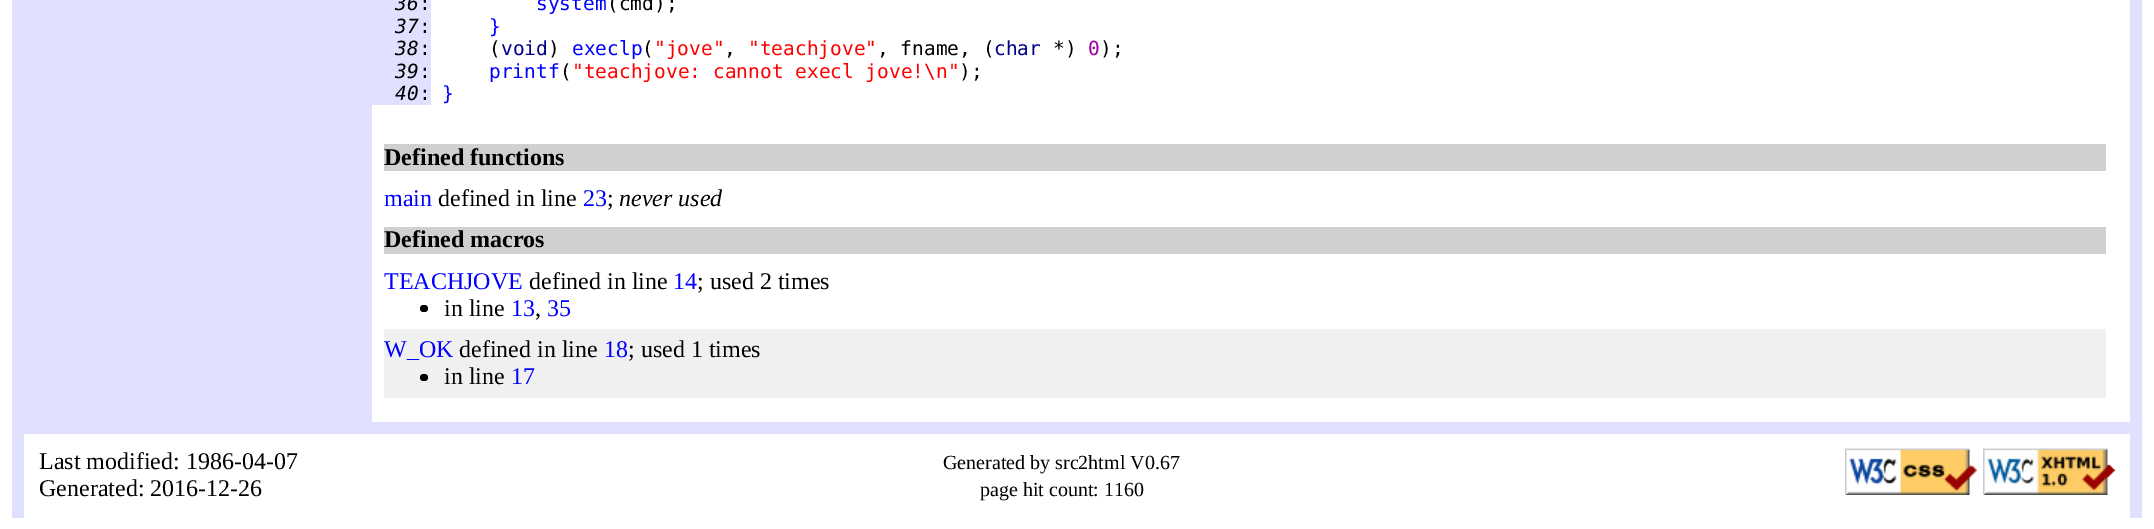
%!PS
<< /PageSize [2154 529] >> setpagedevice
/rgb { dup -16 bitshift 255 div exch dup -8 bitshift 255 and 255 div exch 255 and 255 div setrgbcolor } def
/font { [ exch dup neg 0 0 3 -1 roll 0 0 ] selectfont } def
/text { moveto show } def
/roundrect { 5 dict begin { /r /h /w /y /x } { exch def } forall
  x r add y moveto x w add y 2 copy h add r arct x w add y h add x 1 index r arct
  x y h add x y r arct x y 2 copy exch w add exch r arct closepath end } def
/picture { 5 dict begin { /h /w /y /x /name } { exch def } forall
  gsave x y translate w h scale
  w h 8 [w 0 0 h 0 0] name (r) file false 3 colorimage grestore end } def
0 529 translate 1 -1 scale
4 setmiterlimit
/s1 { /DejaVuSansMono-Italic 19.5 font 16#000000 rgb } def
/s2 { /DejaVuSansMono-Regular 19.5 font 16#000000 rgb } def
/s3 { /DejaVuSansMono-Regular 19.5 font 16#0000FF rgb } def
/s4 { /DejaVuSansMono-Regular 19.5 font 16#00008B rgb } def
/s5 { /DejaVuSansMono-Regular 19.5 font 16#FF0000 rgb } def
/s6 { /DejaVuSansMono-Regular 19.5 font 16#A000A0 rgb } def
/s7 { /LiberationSerif-Bold 24 font 16#000000 rgb } def
/s8 { /LiberationSerif-Regular 24 font 16#0000FF rgb } def
/s9 { /LiberationSerif-Regular 24 font 16#000000 rgb } def
/s10 { /LiberationSerif-Italic 24 font 16#000000 rgb } def
/s11 { /LiberationSerif-Regular 20 font 16#000000 rgb } def
16#FFFFFF rgb
0 0 2154 529 rectfill
16#E0E0FF rgb
12 0 2130 518 rectfill
16#FFFFFF rgb
372 0 1758 422 rectfill
16#E0E0FF rgb
372 0 59 15 rectfill
s1
(36) 395 10 text
s2
(:) 419 10 text
s3
(system) 536 10 text
s2
(\(cmd\);) 607 10 text
16#E0E0FF rgb
372 15 59 23 rectfill
s1
(37) 395 33 text
s2
(:) 419 33 text
s3
(}) 489 33 text
16#E0E0FF rgb
372 38 59 22 rectfill
s1
(38) 395 55 text
s2
(:) 419 55 text
(\() 489 55 text
s4
(void) 501 55 text
s2
(\)) 548 55 text
s3
(execlp) 572 55 text
s2
(\() 642 55 text
s5
("jove") 654 55 text
s2
(,) 724 55 text
s5
("teachjove") 748 55 text
s2
(, fname, \() 877 55 text
s4
(char) 994 55 text
s2
(*\)) 1053 55 text
s6
(0) 1088 55 text
s2
(\);) 1100 55 text
16#E0E0FF rgb
372 60 59 23 rectfill
s1
(39) 395 78 text
s2
(:) 419 78 text
s3
(printf) 489 78 text
s2
(\() 560 78 text
s5
("teachjove: cannot execl jove!\\n") 572 78 text
s2
(\);) 959 78 text
16#E0E0FF rgb
372 83 59 22 rectfill
s1
(40) 395 100 text
s2
(:) 419 100 text
s3
(}) 442 100 text
16#D0D0D0 rgb
384 144 1722 27 rectfill
s7
(Defined functions) 384 165 text
s8
(main) 384 206 text
s9
(defined in line) 438 206 text
s8
(23) 583 206 text
s9
(;) 607 206 text
s10
(never used) 619 206 text
16#D0D0D0 rgb
384 227 1722 27 rectfill
s7
(Defined macros) 384 247 text
s8
(TEACHJOVE) 384 289 text
s9
(defined in line) 529 289 text
s8
(14) 673 289 text
s9
(; used 2 times) 697 289 text
420 305 8 7 3.5 roundrect fill
(in line) 444 316 text
s8
(13) 511 316 text
(35) 547 316 text
s9
(,) 535 316 text
16#F0F0F0 rgb
384 329 1722 69 rectfill
s8
(W_OK) 384 357 text
s9
(defined in line) 459 357 text
s8
(18) 604 357 text
s9
(; used 1 times) 628 357 text
420 374 8 7 3.5 roundrect fill
(in line) 444 384 text
s8
(17) 511 384 text
16#FFFFFF rgb
24 434 2106 84 rectfill
s9
(Last modified: 1986-04-07) 39 469 text
(Generated: 2016-12-26) 39 496 text
s11
(Generated by src2html V0.67) 943 469 text
(page hit count: 1160) 980 496 text
(pic1.raw) 1845 448 132 47 picture
(pic2.raw) 1983 448 132 47 picture
showpage
